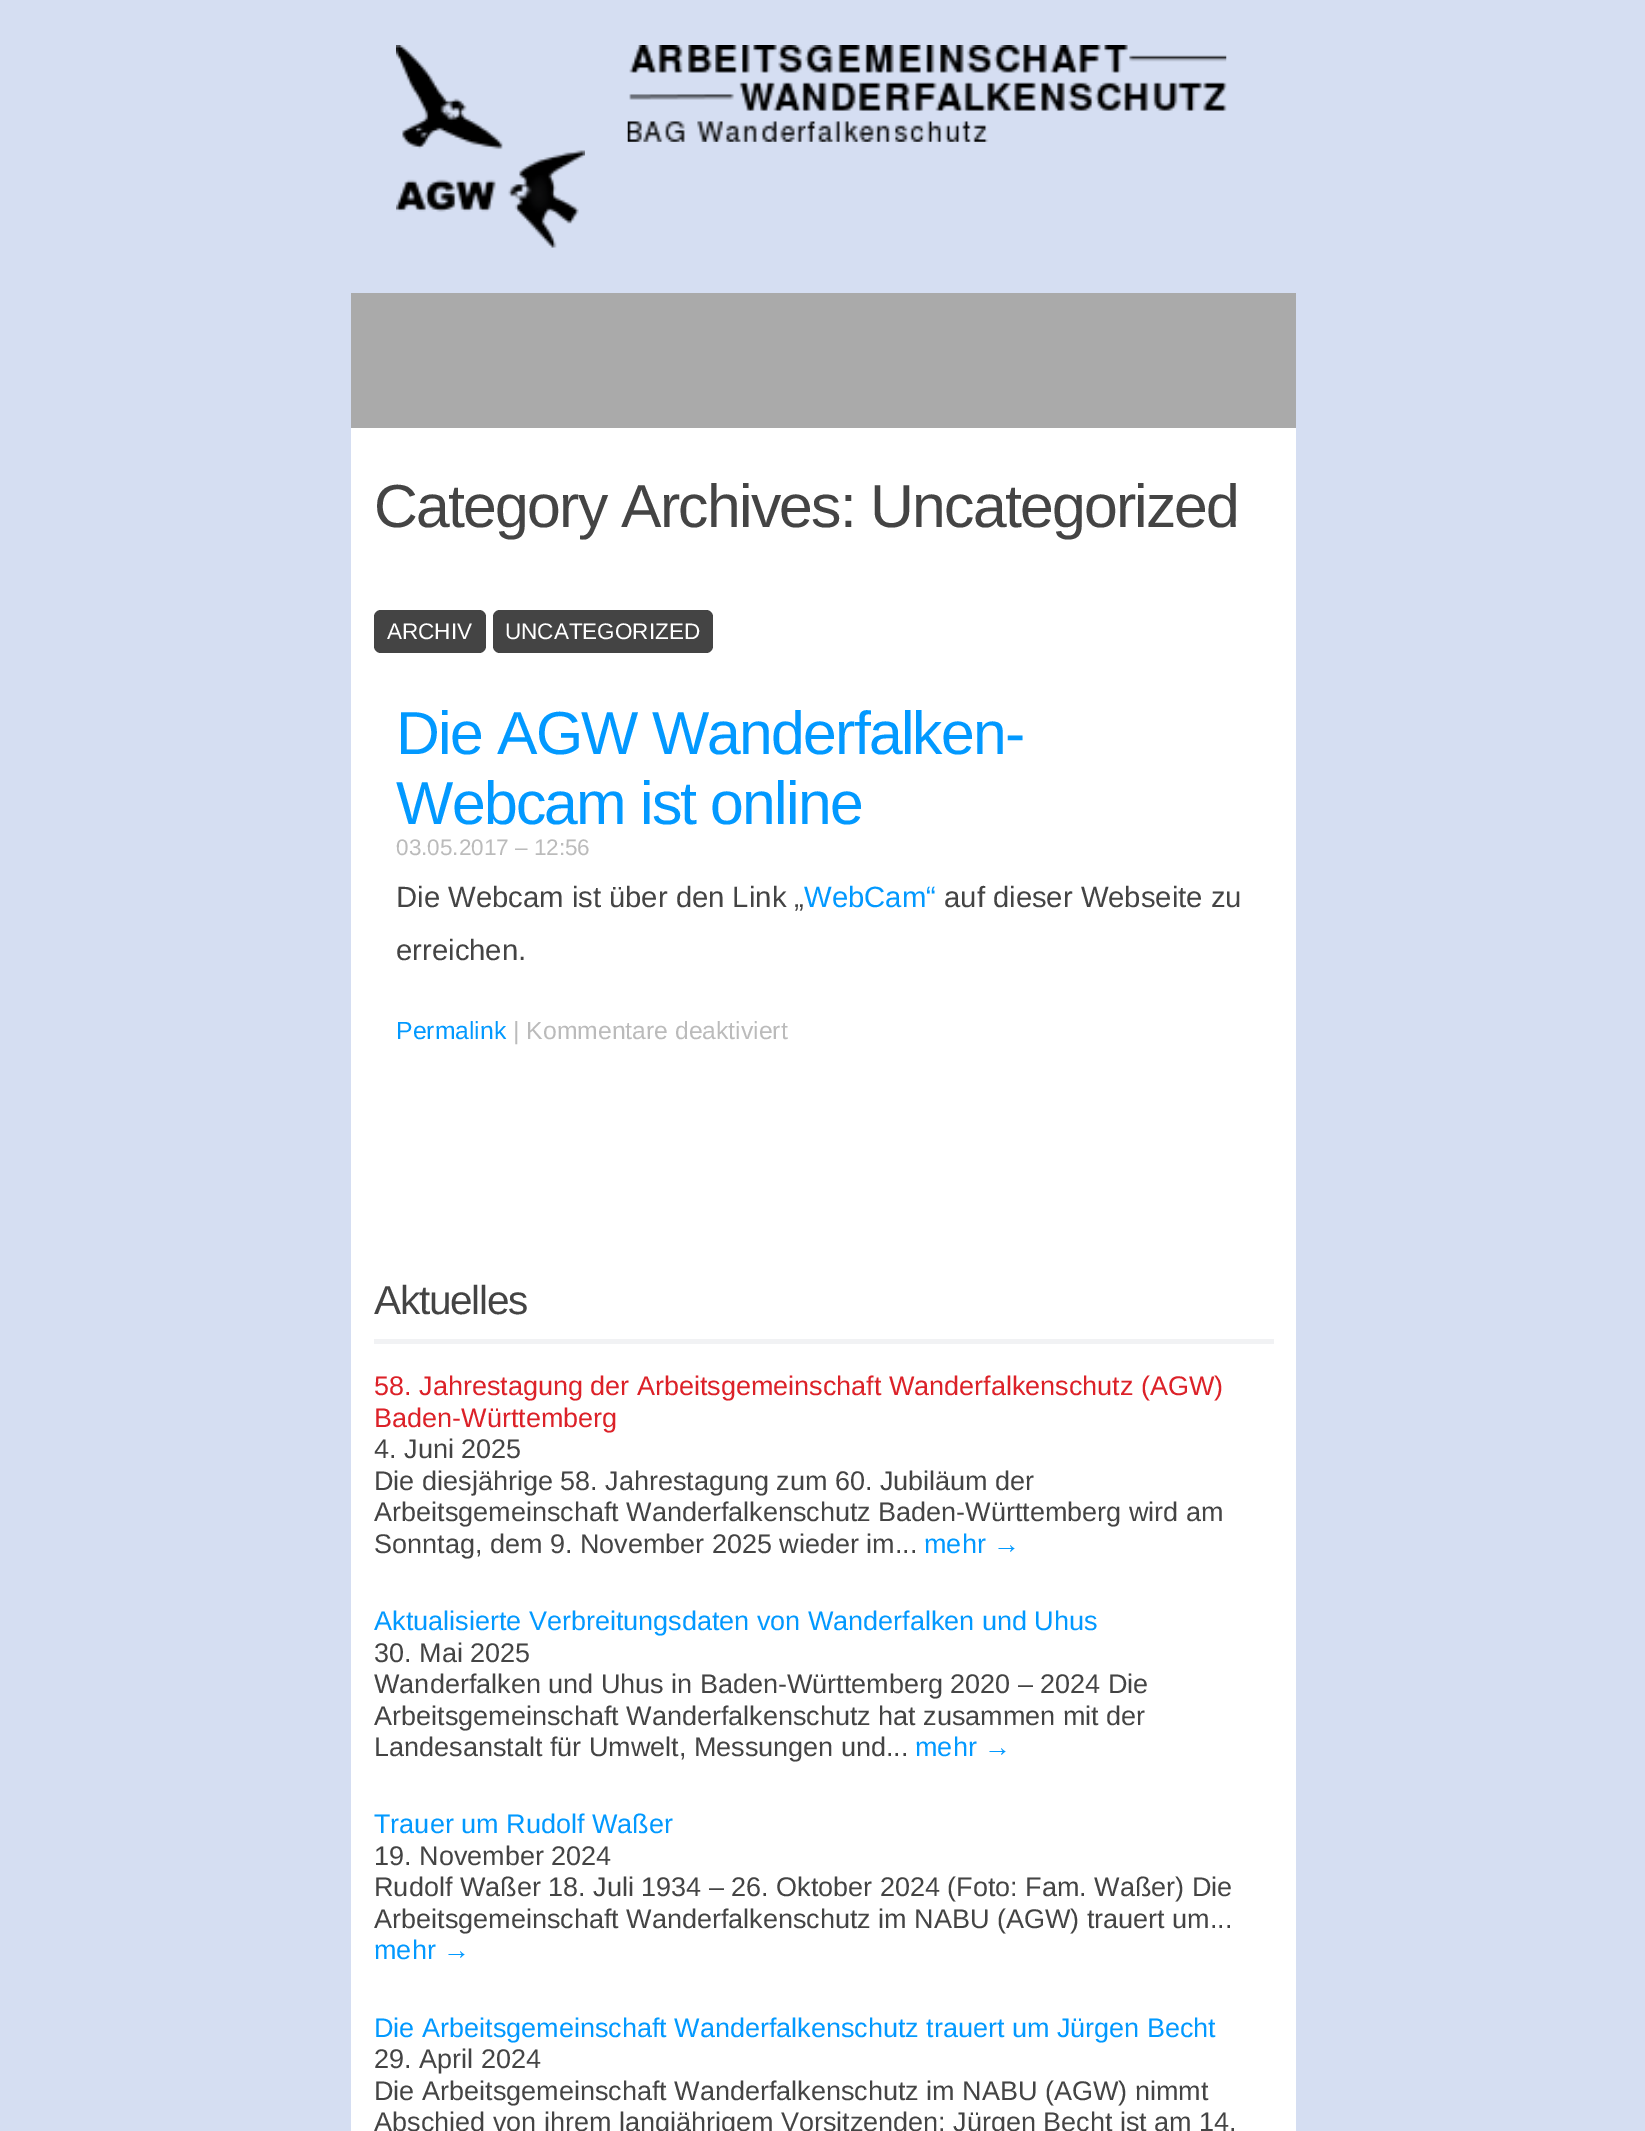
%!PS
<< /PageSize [1645 2131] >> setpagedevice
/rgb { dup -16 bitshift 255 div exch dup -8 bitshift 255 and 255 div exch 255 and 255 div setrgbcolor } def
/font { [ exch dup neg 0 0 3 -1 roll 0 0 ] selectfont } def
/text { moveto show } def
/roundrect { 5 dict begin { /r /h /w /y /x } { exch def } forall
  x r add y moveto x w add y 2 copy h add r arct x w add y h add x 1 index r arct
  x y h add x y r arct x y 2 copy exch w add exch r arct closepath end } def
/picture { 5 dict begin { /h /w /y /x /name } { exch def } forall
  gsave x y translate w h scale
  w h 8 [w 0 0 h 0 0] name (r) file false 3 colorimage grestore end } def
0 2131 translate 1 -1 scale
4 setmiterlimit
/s1 { /LiberationSans-Regular 22.5 font 16#FFFFFF rgb } def
/s2 { /LiberationSans-Regular 22.5 font 16#BBBBBB rgb } def
/s3 { /LiberationSans-Regular 29.25 font 16#444444 rgb } def
/s4 { /LiberationSans-Regular 29.25 font 16#0299FF rgb } def
/s5 { /LiberationSans-Regular 24.75 font 16#0299FF rgb } def
/s6 { /LiberationSans-Regular 24.75 font 16#BBBBBB rgb } def
/s7 { /LiberationSans-Regular 27 font 16#DC2128 rgb } def
/s8 { /LiberationSans-Regular 27 font 16#444444 rgb } def
/s9 { /LiberationSans-Regular 27 font 16#0299FF rgb } def
16#D5DEF2 rgb
0 0 1645 2131 rectfill
(pic1.raw) 396 45 189 203 picture
(pic2.raw) 627 45 600 97 picture
16#FFFFFF rgb
351 428 945 1703 rectfill
16#AAAAAA rgb
351 293 945 135 rectfill
/LiberationSans-Regular 60.75 font
16#444444 rgb
374 527 moveto -1.8 0 (Category Archives: Uncategorized) ashow
374 610 112 43 7 roundrect fill
s1
(ARCHIV) 387 639 text
16#444444 rgb
493 610 220 43 7 roundrect fill
s1
(UNCATEGORIZED) 505 639 text
/LiberationSans-Regular 60.75 font
16#0299FF rgb
396 754 moveto -1.8 0 (Die AGW Wanderfalken-) ashow
396 824 moveto -1.8 0 (Webcam ist online) ashow
s2
(03.05.2017 – 12:56) 396 855 text
s3
(Die Webcam ist über den Link „) 396 907 text
s4
(WebCam“) 804 907 text
s3
(auf dieser Webseite zu) 944 907 text
(erreichen.) 396 960 text
s5
(Permalink) 396 1039 text
s6
(| Kommentare deaktiviert) 513 1039 text
16#F1F2F4 rgb
374 1339 900 5 rectfill
/LiberationSans-Regular 40.5 font
16#444444 rgb
374 1314 moveto -1.25 0 (Aktuelles) ashow
s7
(58. Jahrestagung der Arbeitsgemeinschaft Wanderfalkenschutz \(AGW\)) 374 1395 text
(Baden-Württemberg) 374 1427 text
s8
(4. Juni 2025) 374 1458 text
(Die diesjährige 58. Jahrestagung zum 60. Jubiläum der) 374 1490 text
(Arbeitsgemeinschaft Wanderfalkenschutz Baden-Württemberg wird am) 374 1521 text
(Sonntag, dem 9. November 2025 wieder im...) 374 1553 text
s9
(mehr →) 924 1553 text
(Aktualisierte Verbreitungsdaten von Wanderfalken und Uhus) 374 1630 text
s8
(30. Mai 2025) 374 1662 text
(Wanderfalken und Uhus in Baden-Württemberg 2020 – 2024 Die) 374 1693 text
(Arbeitsgemeinschaft Wanderfalkenschutz hat zusammen mit der) 374 1725 text
(Landesanstalt für Umwelt, Messungen und...) 374 1756 text
s9
(mehr →) 915 1756 text
(Trauer um Rudolf Waßer) 374 1833 text
s8
(19. November 2024) 374 1865 text
(Rudolf Waßer 18. Juli 1934 – 26. Oktober 2024 \(Foto: Fam. Waßer\) Die) 374 1896 text
(Arbeitsgemeinschaft Wanderfalkenschutz im NABU \(AGW\) trauert um...) 374 1928 text
s9
(mehr →) 374 1959 text
(Die Arbeitsgemeinschaft Wanderfalkenschutz trauert um Jürgen Becht) 374 2037 text
s8
(29. April 2024) 374 2068 text
(Die Arbeitsgemeinschaft Wanderfalkenschutz im NABU \(AGW\) nimmt) 374 2100 text
(Abschied von ihrem langjährigem Vorsitzenden: Jürgen Becht ist am 14.) 374 2131 text
showpage
